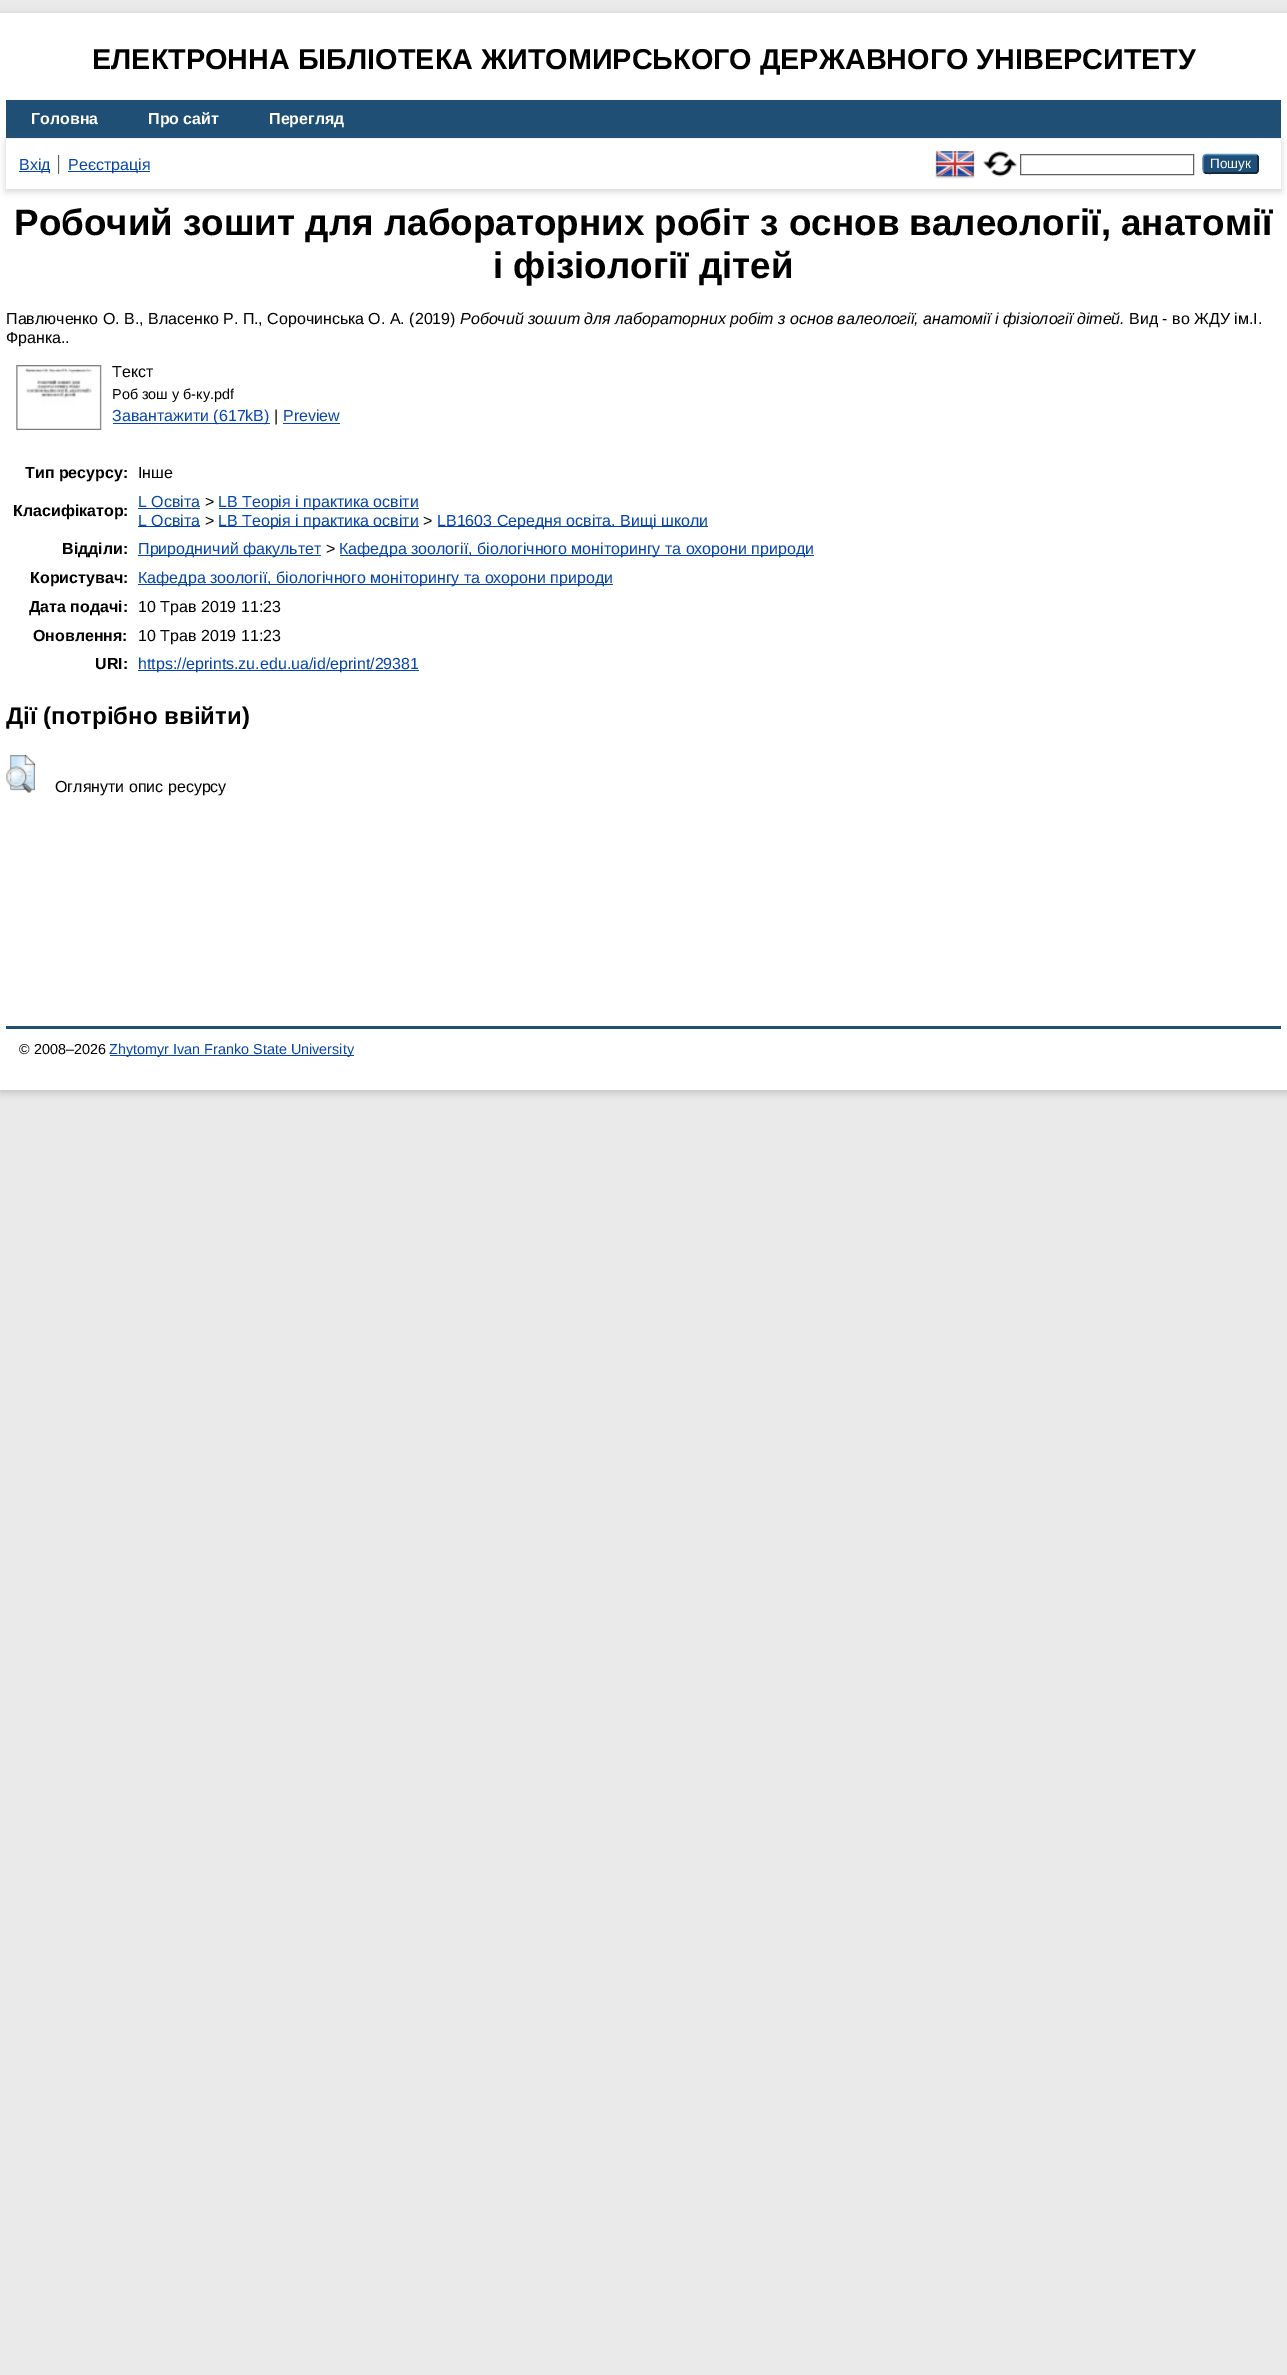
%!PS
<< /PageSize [1287 2375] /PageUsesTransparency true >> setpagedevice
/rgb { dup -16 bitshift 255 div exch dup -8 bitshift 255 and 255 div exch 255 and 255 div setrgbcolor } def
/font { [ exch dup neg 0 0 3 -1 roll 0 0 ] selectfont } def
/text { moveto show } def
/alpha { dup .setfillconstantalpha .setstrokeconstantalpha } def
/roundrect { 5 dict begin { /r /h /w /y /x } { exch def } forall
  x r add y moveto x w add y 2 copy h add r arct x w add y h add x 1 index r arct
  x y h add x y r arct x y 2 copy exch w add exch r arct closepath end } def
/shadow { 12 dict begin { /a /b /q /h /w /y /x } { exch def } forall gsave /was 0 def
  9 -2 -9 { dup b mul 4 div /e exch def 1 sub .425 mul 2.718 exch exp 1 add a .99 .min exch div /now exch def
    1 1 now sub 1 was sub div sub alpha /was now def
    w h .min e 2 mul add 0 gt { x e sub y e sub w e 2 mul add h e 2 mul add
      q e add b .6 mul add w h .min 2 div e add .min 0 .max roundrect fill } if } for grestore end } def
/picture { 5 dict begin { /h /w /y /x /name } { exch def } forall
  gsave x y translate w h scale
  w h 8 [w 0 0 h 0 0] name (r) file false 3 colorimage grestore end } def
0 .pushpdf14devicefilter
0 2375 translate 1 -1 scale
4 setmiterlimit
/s1 { /LiberationSans-Bold 28.8 font 16#000000 rgb } def
/s2 { /LiberationSans-Bold 16 font 16#FFFFFF rgb } def
/s3 { /LiberationSans-Regular 16 font 16#0645AD rgb } def
/s4 { /LiberationSans-Regular 13.5 font 16#FFFFFF rgb } def
/s5 { /LiberationSans-Bold 36.8 font 16#000000 rgb } def
/s6 { /LiberationSans-Regular 16 font 16#000000 rgb } def
/s7 { /LiberationSans-Italic 16 font 16#000000 rgb } def
/s8 { /LiberationSans-Regular 14.4 font 16#000000 rgb } def
/s9 { /LiberationSans-Bold 16 font 16#000000 rgb } def
/s10 { /LiberationSans-Bold 24 font 16#000000 rgb } def
/s11 { /LiberationSans-Regular 14.4 font 16#0645AD rgb } def
16#EAEAEA rgb
0 0 1287 2375 rectfill
16#646464 rgb
0 15 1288 1078 0 4 0.3 shadow
16#FFFFFF rgb
0 13 1287 1077 rectfill
s1
(ЕЛЕКТРОННА БІБЛІОТЕКА ЖИТОМИРСЬКОГО ДЕРЖАВНОГО УНІВЕРСИТЕТУ) 92 69 text
16#204F76 rgb
6 100 1275 38 rectfill
s2
(Головна) 31 124 text
(Про сайт) 148 124 text
(Перегляд) 269 124 text
16#646464 rgb
6 141 1275 50 0 4 0.3 shadow
16#FFFFFF rgb
6 139 1275 50 rectfill
16#606060 rgb
58 155 1 19 rectfill
16#0645AD rgb
19 171 31 1 rectfill
s3
(Вхід) 19 170 text
16#E8E8E8 rgb
59 155 1 19 rectfill
16#0645AD rgb
68 171 82 1 rectfill
(Реєстрація) 68 170 text
(pic1.raw) 935 151 40 28 picture
(pic2.raw) 983 151 35 26 picture
16#606060 rgb
1020.5 154.5 173 20 rectstroke
16#1F4F76 rgb
1203 154 56 20 4 roundrect fill
16#5B97C7 rgb
1.2 setlinewidth
1204 155.5 moveto 1206 154.5 lineto 1255.5 154.5 lineto 1257 155.5 lineto stroke
16#0D2131 rgb
1257 155.5 moveto 1259 157.5 1258 161.5 1258 164 curveto 1258 174.5 1258.5 173 1247 173 curveto 1214.5 173 lineto 1214 173 1206 174.5 1204 172 curveto stroke
16#5287B3 rgb
1204 172 moveto 1202.5 170.5 1203 166 1203 164 curveto 1203 161.5 1202.5 157 1204 155.5 curveto stroke
s4
(Пошук) 1210 168 text
s5
(Робочий зошит для лабораторних робіт з основ валеології, анатомії) 14 235 text
(і фізіології дітей) 493 278 text
s6
(Павлюченко О. В., Власенко Р. П., Сорочинська О. А. \(2019\)) 6 324 text
s7
(Робочий зошит для лабораторних робіт з основ валеології, анатомії і фізіології дітей.) 460 324 text
s6
(Вид - во ЖДУ ім.І.) 1129 324 text
(Франка..) 6 343 text
(pic3.raw) 16 365 86 65 picture
(Текст) 112 377 text
s8
(Роб зош у б-ку.pdf) 112 399 text
16#0645AD rgb
113 423 157 1 rectfill
s3
(Завантажити \(617kB\)) 112 421 text
s6
(|) 274 421 text
s3
(Preview) 283 421 text
283 423 57 1 rectfill
s9
(Тип ресурсу:) 25 478 text
s6
(Інше) 138 478 text
s9
(Класифікатор:) 13 516 text
s3
(L Освіта) 138 507 text
138 508 62 1 rectfill
s6
(>) 205 507 text
16#0645AD rgb
219 508 200 1 rectfill
(LB Теорія і практика освіти) 218 507 text
138 526 62 1 rectfill
(L Освіта) 138 526 text
s6
(>) 205 526 text
16#0645AD rgb
219 526 200 1 rectfill
(LB Теорія і практика освіти) 218 526 text
s6
(>) 423 526 text
16#0645AD rgb
438 526 270 1 rectfill
(LB1603 Середня освіта. Вищі школи) 437 526 text
s9
(Відділи:) 62 554 text
16#0645AD rgb
138 555 183 1 rectfill
s3
(Природничий факультет) 138 554 text
s6
(>) 326 554 text
16#0645AD rgb
340 555 474 1 rectfill
(Кафедра зоології, біологічного моніторингу та охорони природи) 339 554 text
s9
(Користувач:) 30 583 text
16#0645AD rgb
138 584 475 1 rectfill
s3
(Кафедра зоології, біологічного моніторингу та охорони природи) 138 583 text
s9
(Дата подачі:) 29 612 text
s6
(10 Трав 2019 11:23) 138 612 text
s9
(Оновлення:) 33 641 text
s6
(10 Трав 2019 11:23) 138 641 text
s9
(URI:) 95 669 text
16#0645AD rgb
138 670 281 1 rectfill
s3
(https://eprints.zu.edu.ua/id/eprint/29381) 138 669 text
s10
(Дії \(потрібно ввійти\)) 6 724 text
(pic4.raw) 6 755 29 38 picture
s6
(Оглянути опис ресурсу) 55 792 text
16#204F76 rgb
6 1026 1275 3 rectfill
s8
(© 2008–2026) 19 1054 text
16#0645AD rgb
110 1055 244 1 rectfill
(Zhytomyr Ivan Franko State University) 109 1054 text
.poppdf14devicefilter showpage
